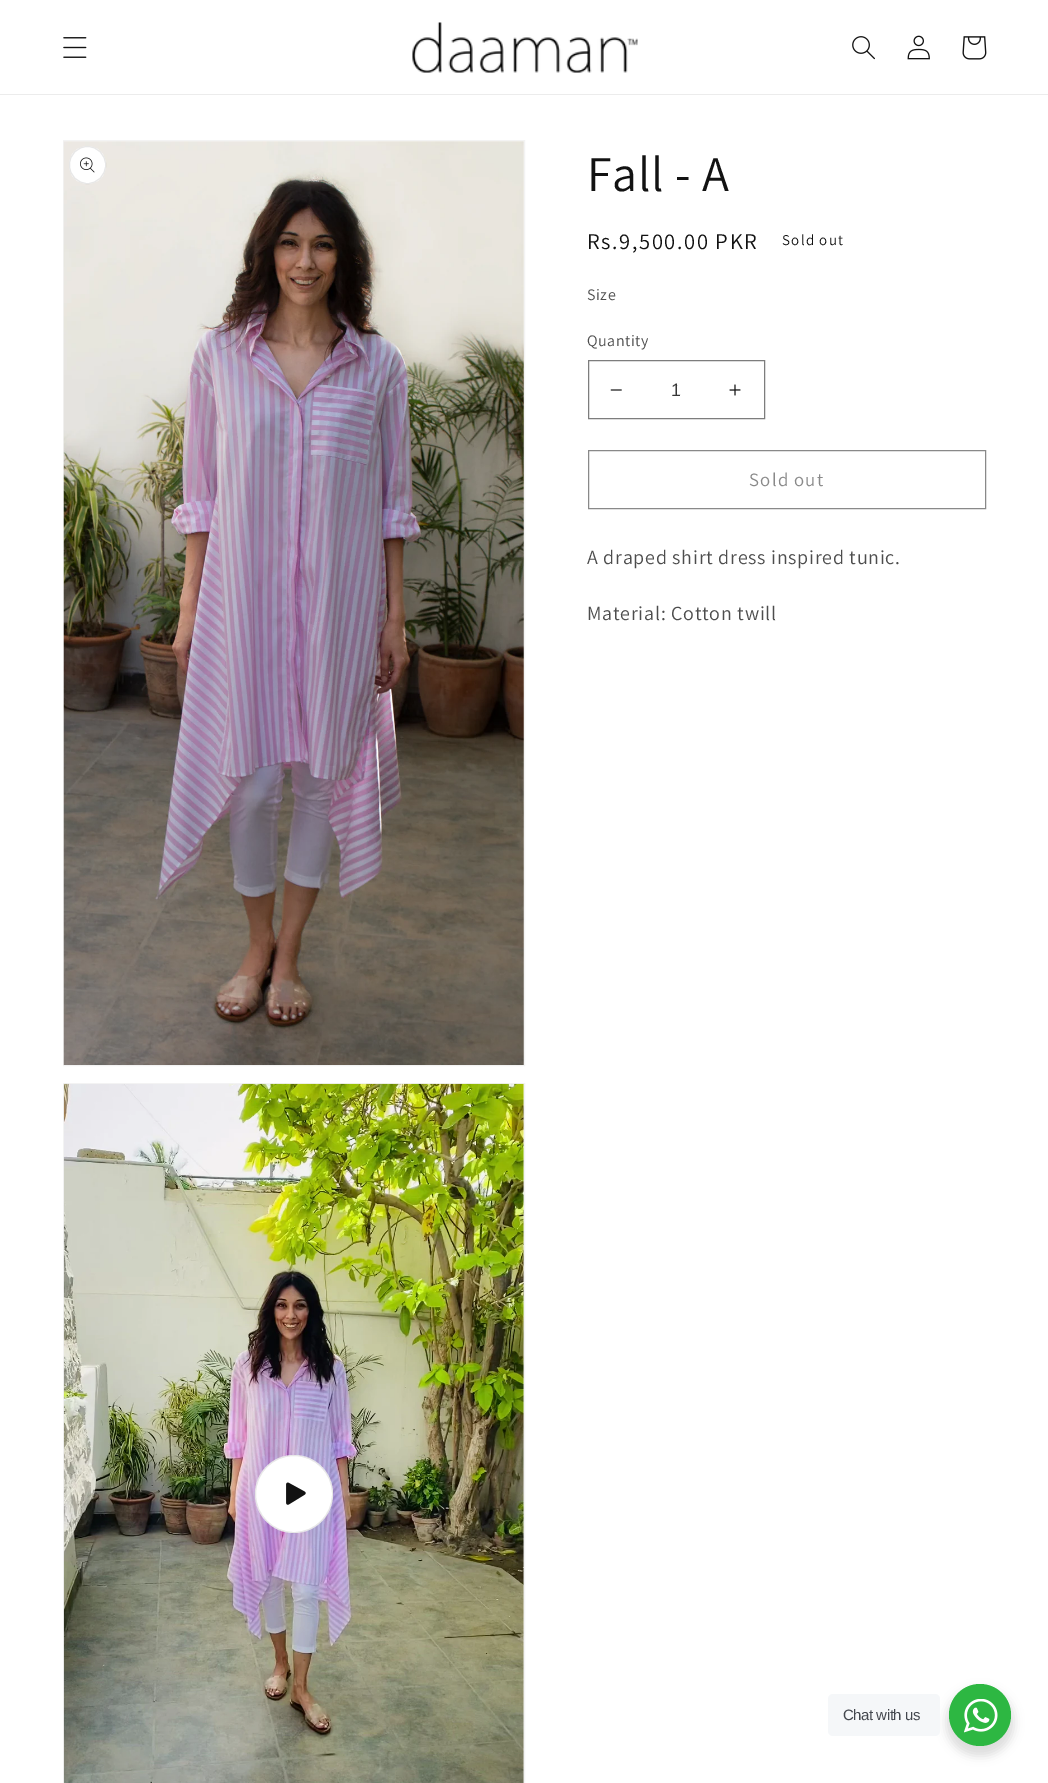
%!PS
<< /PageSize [1048 1783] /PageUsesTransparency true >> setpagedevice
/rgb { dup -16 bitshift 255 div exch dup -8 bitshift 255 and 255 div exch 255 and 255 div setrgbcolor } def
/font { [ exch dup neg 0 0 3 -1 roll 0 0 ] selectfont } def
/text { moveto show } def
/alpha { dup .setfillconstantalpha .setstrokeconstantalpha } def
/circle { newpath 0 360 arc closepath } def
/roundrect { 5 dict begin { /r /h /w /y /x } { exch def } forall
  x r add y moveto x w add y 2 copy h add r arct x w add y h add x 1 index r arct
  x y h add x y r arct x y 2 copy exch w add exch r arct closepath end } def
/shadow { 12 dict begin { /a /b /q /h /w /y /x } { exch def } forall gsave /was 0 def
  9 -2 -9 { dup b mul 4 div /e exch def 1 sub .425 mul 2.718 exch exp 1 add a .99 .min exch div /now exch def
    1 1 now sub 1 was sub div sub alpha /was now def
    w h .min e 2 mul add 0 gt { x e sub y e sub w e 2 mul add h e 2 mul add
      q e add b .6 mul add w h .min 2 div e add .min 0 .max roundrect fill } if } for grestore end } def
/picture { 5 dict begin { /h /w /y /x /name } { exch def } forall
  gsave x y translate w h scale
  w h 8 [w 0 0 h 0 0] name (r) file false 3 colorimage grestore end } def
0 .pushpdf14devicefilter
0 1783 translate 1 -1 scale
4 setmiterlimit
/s1 { /LiberationSans-Regular 18 font 16#363636 rgb } def
16#FFFFFF rgb
0 0 1048 1783 rectfill
16#ECECEC rgb
0 94 1048 1 rectfill
(pic1.raw) 63 37 24 21 picture
(pic2.raw) 412 22 226 51 picture
(pic3.raw) 852 36 23 24 picture
(pic4.raw) 907 35 23 25 picture
(pic5.raw) 962 36 25 24 picture
16#F3F3F3 rgb
63.5 140.5 461 925 rectstroke
(pic6.raw) 63 141 461 924 picture
16#FFFFFF rgb
69 146 37 38 18.5 roundrect fill
0.1 alpha
16#121212 rgb
69.5 146.5 36 37 18 roundrect stroke
1 alpha
(pic7.raw) 80 157 15 16 picture
16#F3F3F3 rgb
63.5 1083.5 461 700 rectstroke
(pic8.raw) 63 1083 461 700 picture
16#FFFFFF rgb
294 1494 39 circle fill
0.1 alpha
16#121212 rgb
294 1494 38.5 circle stroke
1 alpha
(pic9.raw) 286 1482 20 23 picture
/Assistant-Regular 50 font
587 191 moveto 0.75 0 (Fall - A) ashow
/Assistant-Regular 22.5 font
587 249 moveto 1.6 0 (Rs.9,500.00 PKR) ashow
/Assistant-Regular 15 font
782 245 moveto 1.25 0 (Sold out) ashow
/Assistant-Regular 16 font
16#4D4D4D rgb
587 300 moveto 0.5 0 (Size) ashow
587 346 moveto 0.5 0 (Quantity) ashow
(pic10.raw) 610 389 12 2 picture
(pic11.raw) 729 384 12 12 picture
16#7D7D7D rgb
588.5 360.5 176 58 rectstroke
s1
(1) 671 396 text
16#898989 rgb
588.5 450.5 397 58 rectstroke
/Assistant-Regular 18.75 font
749 486 moveto 1.25 0 (Sold out) ashow
/Assistant-Regular 20 font
16#4D4D4D rgb
587 564 moveto 0.75 0 (A draped shirt dress inspired tunic.) ashow
587 620 moveto 0.75 0 (Material: Cotton twill) ashow
16#000000 rgb
946 1689 68 67 33.5 5 0.14 shadow
16#F5F7F9 rgb
828 1694 112 42 5 roundrect fill
/LiberationSans-Regular 15 font
16#43474E rgb
843 1720 moveto -0.5 0 (Chat with us) ashow
16#2DB742 rgb
980 1715 31 circle fill
(pic12.raw) 964 1699 34 34 picture
.poppdf14devicefilter showpage
